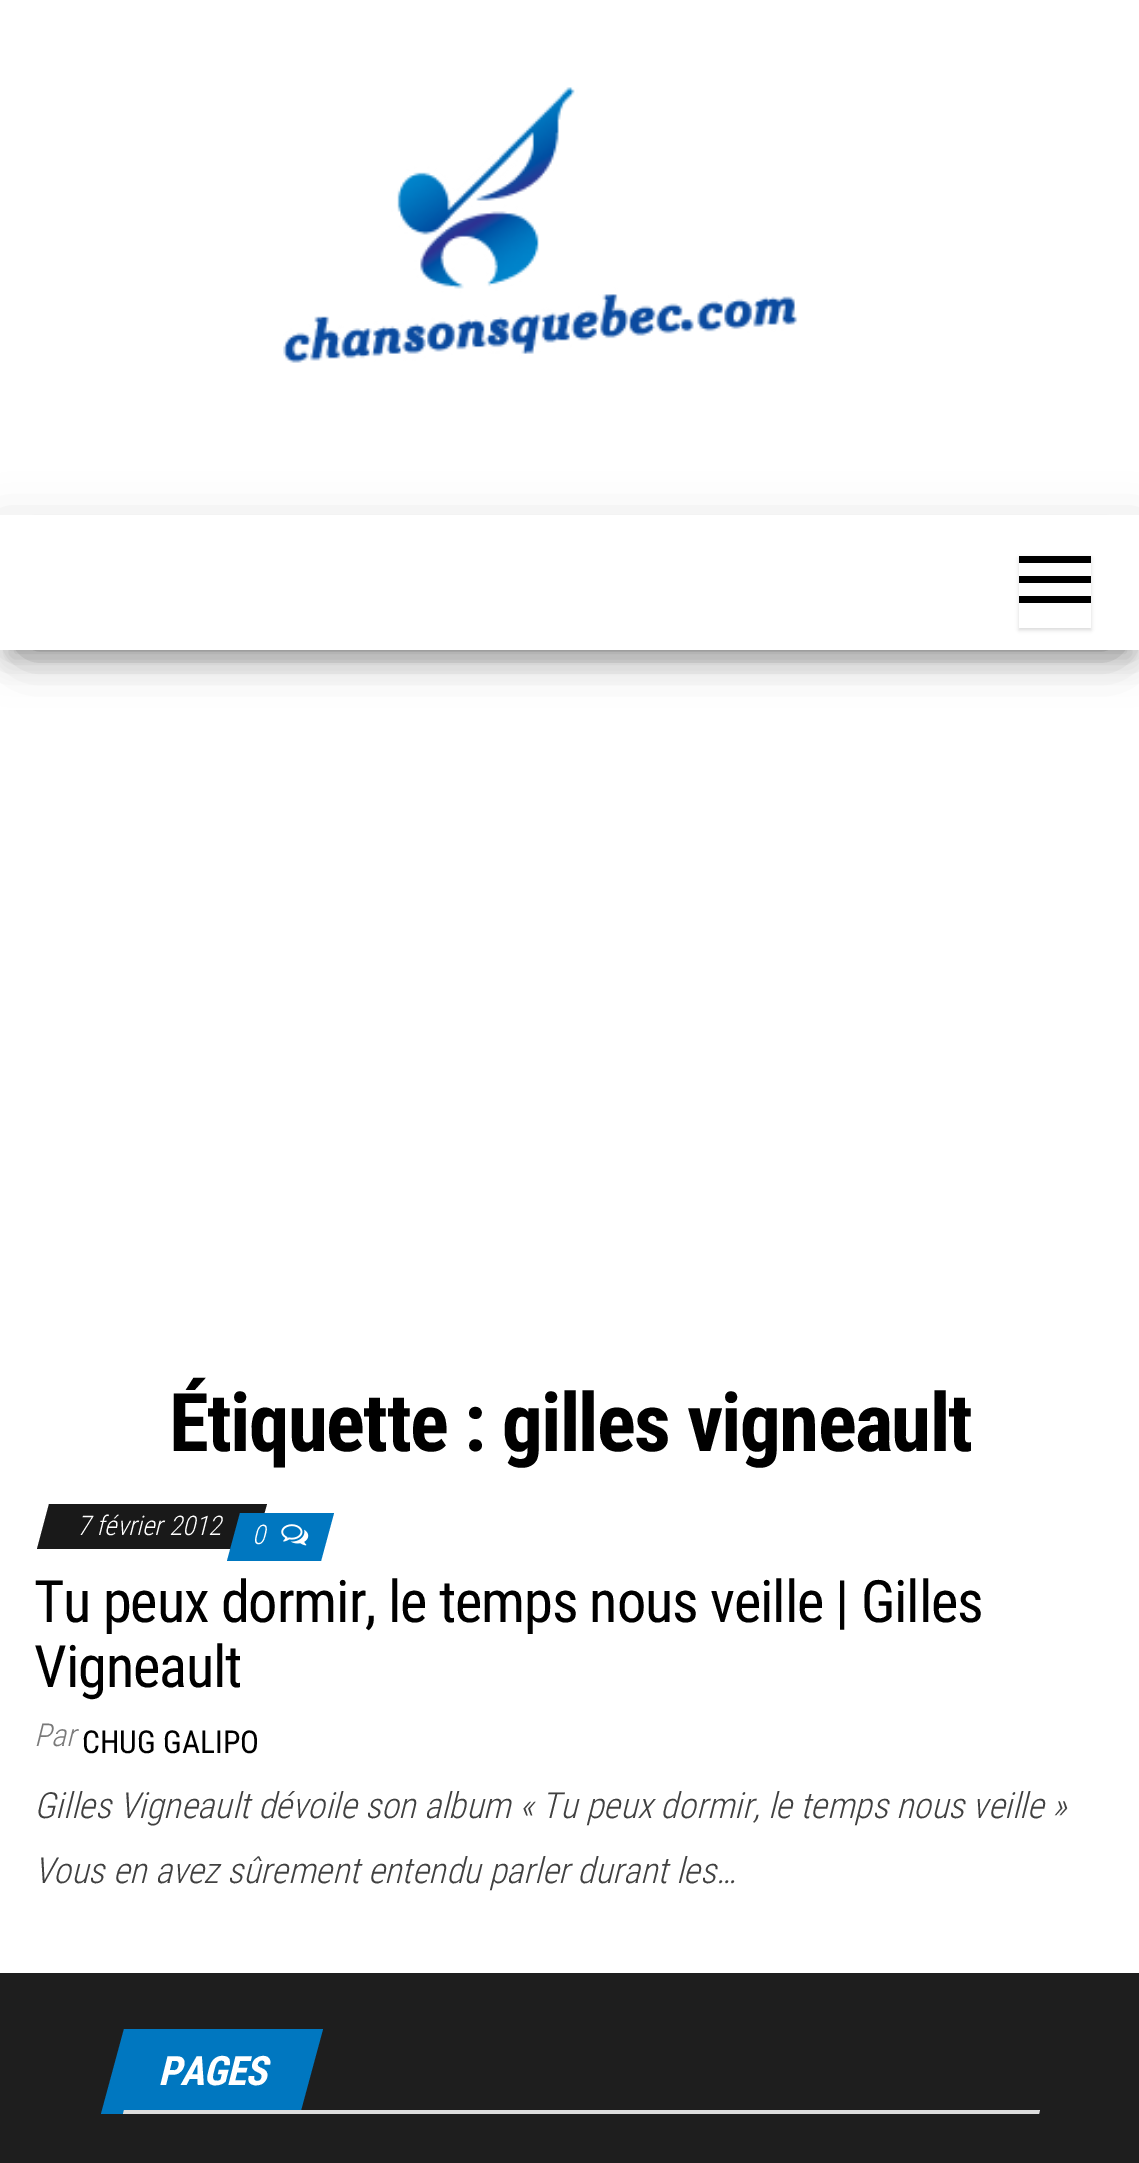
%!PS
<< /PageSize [1139 2163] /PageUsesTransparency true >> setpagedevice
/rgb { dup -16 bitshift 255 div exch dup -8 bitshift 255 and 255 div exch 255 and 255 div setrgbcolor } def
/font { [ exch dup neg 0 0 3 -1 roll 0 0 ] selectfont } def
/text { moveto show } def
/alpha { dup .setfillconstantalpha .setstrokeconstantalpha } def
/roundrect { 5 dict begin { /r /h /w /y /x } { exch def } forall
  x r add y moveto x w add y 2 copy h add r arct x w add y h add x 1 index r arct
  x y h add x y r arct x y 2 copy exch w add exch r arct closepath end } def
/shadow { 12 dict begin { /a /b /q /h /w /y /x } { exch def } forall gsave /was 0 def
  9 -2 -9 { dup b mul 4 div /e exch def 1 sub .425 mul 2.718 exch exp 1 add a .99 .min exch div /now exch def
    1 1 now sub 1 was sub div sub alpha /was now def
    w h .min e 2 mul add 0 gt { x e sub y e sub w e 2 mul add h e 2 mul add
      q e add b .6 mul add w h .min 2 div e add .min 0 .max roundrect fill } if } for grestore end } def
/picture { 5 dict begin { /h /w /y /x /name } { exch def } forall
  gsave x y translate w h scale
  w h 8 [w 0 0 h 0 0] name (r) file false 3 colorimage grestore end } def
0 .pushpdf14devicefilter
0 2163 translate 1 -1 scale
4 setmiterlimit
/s1 { /RobotoCondensed-LightItalic 27 font 16#FFFFFF rgb } def
/s2 { /RobotoCondensed-LightItalic 31.5 font 16#797979 rgb } def
/s3 { /RobotoCondensed-Regular 31.5 font 16#000000 rgb } def
/s4 { /RobotoCondensed-LightItalic 36 font 16#404040 rgb } def
16#FFFFFF rgb
0 0 1139 2163 rectfill
(pic1.raw) 283 87 515 276 picture
16#000000 rgb
11 545 1119 112 0 11 0.2 shadow
0 522 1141 135 0 22.5 0.12 shadow
27 565 1087 81 0 22.5 0.42 shadow
16#FFFFFF rgb
0 515 1139 135 rectfill
gsave
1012 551 moveto 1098 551 lineto 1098 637 lineto 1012 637 lineto closepath 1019 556 moveto 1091 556 lineto 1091 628 lineto 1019 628 lineto closepath eoclip newpath
16#000000 rgb
1019 558 72 72 0 2 0.15 shadow
grestore
16#000000 rgb
1019 556 72 7 rectfill
1019 576 72 7 rectfill
1019 596 72 7 rectfill
/RobotoCondensed-Bold 81 font
169 1451 moveto -1.6 0 (Étiquette : gilles vigneault) ashow
16#191919 rgb
49 1504 moveto 267 1504 lineto 254 1549 lineto 37 1549 lineto closepath fill
s1
(7 février 2012) 77 1535 text
16#0077C0 rgb
240 1513 moveto 334 1513 lineto 321 1561 lineto 227 1561 lineto closepath fill
s1
(0) 252 1544 text
(pic2.raw) 281 1524 28 22 picture
/RobotoCondensed-Regular 58.5 font
16#000000 rgb
34 1622 moveto -1.15 0 (Tu peux dormir, le temps nous veille | Gilles) ashow
34 1687 moveto -1.15 0 (Vigneault) ashow
s2
(Par) 34 1746 text
s3
(CHUG GALIPO) 82 1753 text
s4
(Gilles Vigneault dévoile son album « Tu peux dormir, le temps nous veille ») 34 1818 text
(Vous en avez sûrement entendu parler durant les…) 34 1883 text
16#1E1E1E rgb
0 1973 1139 190 rectfill
16#0077C0 rgb
124 2029 moveto 323 2029 lineto 300 2114 lineto 101 2114 lineto closepath fill
/RobotoCondensed-BoldItalic 40.5 font
16#FFFFFF rgb
158 2085 moveto -1 0 (PAGES) ashow
16#DDDDDD rgb
124 2110 moveto 1040 2110 lineto 1039 2114 lineto 123 2114 lineto closepath fill
.poppdf14devicefilter showpage
